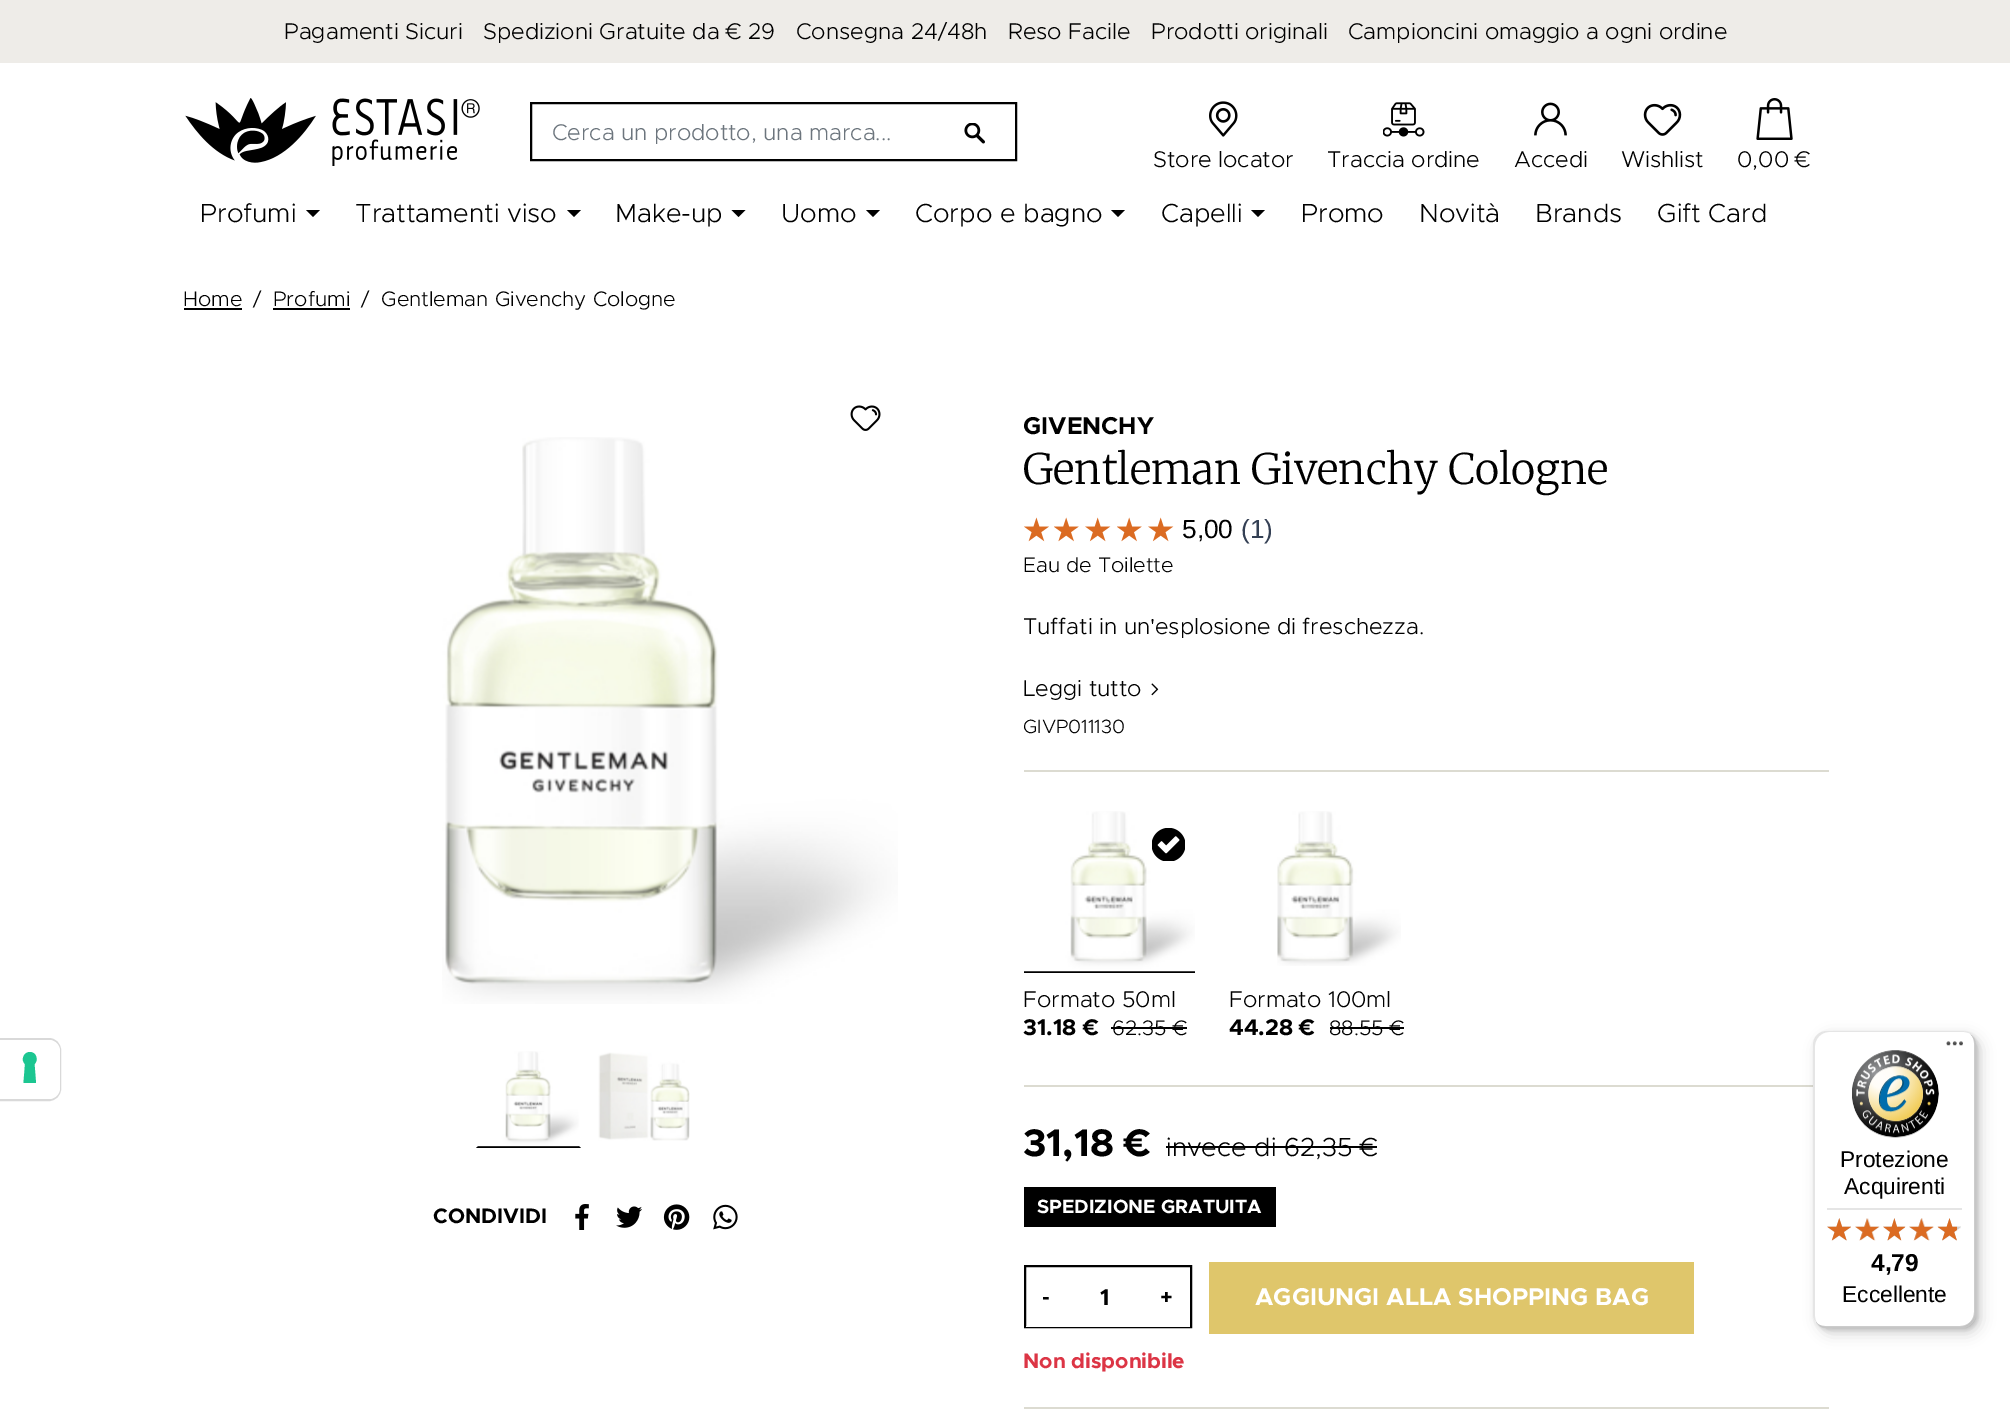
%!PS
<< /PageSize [2010 1423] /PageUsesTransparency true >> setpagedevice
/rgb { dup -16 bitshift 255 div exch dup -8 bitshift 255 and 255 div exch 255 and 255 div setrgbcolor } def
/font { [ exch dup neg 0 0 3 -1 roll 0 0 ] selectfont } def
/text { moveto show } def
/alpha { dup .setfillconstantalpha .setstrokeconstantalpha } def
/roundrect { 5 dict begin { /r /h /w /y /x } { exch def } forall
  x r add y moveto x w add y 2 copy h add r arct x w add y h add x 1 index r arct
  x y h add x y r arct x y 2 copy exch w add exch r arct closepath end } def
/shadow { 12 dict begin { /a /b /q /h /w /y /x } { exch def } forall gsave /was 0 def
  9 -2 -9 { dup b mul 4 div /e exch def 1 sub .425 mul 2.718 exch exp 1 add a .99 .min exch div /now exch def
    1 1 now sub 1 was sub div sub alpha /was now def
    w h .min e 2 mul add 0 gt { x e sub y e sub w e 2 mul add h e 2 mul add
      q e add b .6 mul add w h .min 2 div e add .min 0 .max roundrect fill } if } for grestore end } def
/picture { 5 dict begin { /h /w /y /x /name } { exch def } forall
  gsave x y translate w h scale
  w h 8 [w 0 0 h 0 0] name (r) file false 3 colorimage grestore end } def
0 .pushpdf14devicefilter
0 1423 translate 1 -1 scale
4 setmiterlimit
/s1 { /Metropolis-Light 22.75 font 16#000000 rgb } def
/s2 { /Metropolis-Light 22.75 font 16#6C757D rgb } def
/s3 { /Metropolis-Light 26.25 font 16#000000 rgb } def
/s4 { /Metropolis-Light 21 font 16#000000 rgb } def
/s5 { /Metropolis-Bold 21 font 16#000000 rgb } def
/s6 { /Metropolis-Bold 24.5 font 16#000000 rgb } def
/s7 { /Merriweather-Light 42 font 16#000000 rgb } def
/s8 { /LiberationSans-Regular 26.25 font 16#000000 rgb } def
/s9 { /LiberationSans-Regular 26.25 font 16#344054 rgb } def
/s10 { /Metropolis-Light 19.25 font 16#000000 rgb } def
/s11 { /Metropolis-Bold 22.75 font 16#000000 rgb } def
/s12 { /Metropolis-Bold 38.5 font 16#000000 rgb } def
/s13 { /Metropolis-Bold 19.25 font 16#FFFFFF rgb } def
/s14 { /Metropolis-Bold 24.5 font 16#FFFFFF rgb } def
/s15 { /Metropolis-Bold 21 font 16#DC3545 rgb } def
/s16 { /LiberationSans-Regular 22.75 font 16#000000 rgb } def
/s17 { /LiberationSans-Bold 24.5 font 16#000000 rgb } def
16#FFFFFF rgb
0 0 2010 1423 rectfill
16#D9D9D9 rgb
2 setlinewidth
-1 1039 moveto 49 1039 lineto 55 1039 60 1044 60 1050 curveto 60 1089 lineto 60 1095 55 1100 49 1100 curveto -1 1100 lineto closepath stroke
16#FFFFFF rgb
0 1040 moveto 49 1040 lineto 55 1040 60 1045 60 1051 curveto 60 1088 lineto 60 1094 55 1099 49 1099 curveto 0 1099 lineto closepath fill
16#1CC691 rgb
30 1052 moveto 36 1052 39 1060 34.5 1064 curveto 36 1083 lineto 23.5 1083 lineto 25 1064 lineto 20.5 1060 23.5 1052 30 1052 curveto closepath eofill
16#EEECE8 rgb
0 0 2010 63 rectfill
s1
(Pagamenti Sicuri) 284 39 text
(Spedizioni Gratuite da € 29) 483 39 text
(Consegna 24/48h) 796 39 text
(Reso Facile) 1008 39 text
(Prodotti originali) 1151 39 text
(Campioncini omaggio a ogni ordine) 1348 39 text
(pic1.raw) 185 98 295 68 picture
531 103 485 57 rectstroke
s2
(Cerca un prodotto, una marca...) 552 140 text
(pic2.raw) 964 123 21 21 picture
(pic3.raw) 1209 101 29 36 picture
s1
(Store locator) 1153 167 text
(pic4.raw) 1383 102 42 35 picture
(Traccia ordine) 1327 167 text
(pic5.raw) 1534 102 33 34 picture
(Accedi) 1514 167 text
(pic6.raw) 1643 103 39 33 picture
(Wishlist) 1621 167 text
(pic7.raw) 1756 98 37 42 picture
(0,00 €) 1737 167 text
s3
(Profumi) 200 222 text
306 210 moveto 320 210 lineto 313 217 lineto closepath fill
(Trattamenti viso) 355 222 text
567 210 moveto 581 210 lineto 574 217 lineto closepath fill
(Make-up) 615 222 text
731.5 210 moveto 745.5 210 lineto 738.5 217 lineto closepath fill
(Uomo) 781 222 text
866 210 moveto 880 210 lineto 873 217 lineto closepath fill
(Corpo e bagno) 915 222 text
1111 210 moveto 1125 210 lineto 1118 217 lineto closepath fill
(Capelli) 1161 222 text
1251 210 moveto 1265 210 lineto 1258 217 lineto closepath fill
(Promo) 1301 222 text
(Novità) 1419 222 text
(Brands) 1535 222 text
(Gift Card) 1657 222 text
s4
(Home) 183 306 text
184 308 58 2 rectfill
(/) 253 306 text
(Profumi) 273 306 text
273 308 77 2 rectfill
(/) 361 306 text
(Gentleman Givenchy Cologne) 381 306 text
(pic8.raw) 850 405 31 26 picture
(pic9.raw) 442 437 456 567 picture
581 1148 moveto 476 1148 lineto 478 1146 lineto 579 1146 lineto closepath fill
(pic10.raw) 477 1051 103 96 picture
(pic11.raw) 598 1052 92 89 picture
s5
(CONDIVIDI) 433 1223 text
(pic12.raw) 575 1204 14 26 picture
(pic13.raw) 616 1206 26 22 picture
(pic14.raw) 663 1204 27 26 picture
(pic15.raw) 713 1204 25 26 picture
s6
(GIVENCHY) 1023 434 text
s7
(Gentleman Givenchy Cologne) 1023 484 text
(pic16.raw) 1024 517 25 25 picture
(pic17.raw) 1054 517 25 25 picture
(pic18.raw) 1085 517 26 25 picture
(pic17.raw) 1117 517 25 25 picture
(pic18.raw) 1148 517 26 25 picture
s8
(5,00) 1182 538 text
s9
(\(1\)) 1241 538 text
s4
(Eau de Toilette) 1023 572 text
s1
(Tuffati in un'esplosione di freschezza.) 1023 634 text
(Leggi tutto) 1023 696 text
(pic19.raw) 1151 683 8 13 picture
s10
(GIVP011130) 1023 733 text
16#DCDBD1 rgb
1024 770 805 2 rectfill
16#000000 rgb
1024 971 171 2 rectfill
(pic20.raw) 1024 811 171 161 picture
(pic21.raw) 1152 828 33 33 picture
s1
(Formato 50ml) 1023 1007 text
s11
(31.18 €) 1023 1035 text
s4
(62.35 €) 1112 1035 text
1111 1027 76 2 rectfill
(pic22.raw) 1277 811 124 155 picture
s1
(Formato 100ml) 1229 1007 text
s11
(44.28 €) 1229 1035 text
s4
(88.55 €) 1329 1035 text
1330 1027 74 2 rectfill
16#DCDBD1 rgb
1024 1085 789 2 rectfill
s12
(31,18 €) 1023 1156 text
s3
(invece di 62,35 €) 1166 1156 text
1166 1146 211 2 rectfill
1024 1187 252 40 rectfill
s13
(SPEDIZIONE GRATUITA) 1037 1213 text
16#000000 rgb
1025 1266 166 61 rectstroke
s5
(-) 1042 1304 text
16#FFFFFF rgb
1026 1326 164 1 rectfill
s11
(1) 1100 1305 text
s5
(+) 1160 1304 text
16#DFC66B rgb
1209 1262 485 72 rectfill
s14
(AGGIUNGI ALLA SHOPPING BAG) 1255 1305 text
s15
(Non disponibile) 1023 1368 text
16#DCDBD1 rgb
1024 1407 805 2 rectfill
16#000000 rgb
1818 1036 163 298 14 7 0.15 shadow
1815 1033 163 297 14 2 0.15 shadow
16#FFFFFF rgb
1813 1031 163 297 14 roundrect fill
0.1 alpha
16#000000 rgb
1829 1032 moveto 1964 1032 lineto 1966 1032 1969 1033 1971 1034 curveto 1968 1032 1965 1031 1962 1031 curveto 1827 1031 lineto 1819 1031 1813 1037 1813 1045 curveto 1813 1314 lineto 1813 1318 1815 1322 1818 1324 curveto 1816 1322 1815 1319 1815 1316 curveto 1815 1046 lineto 1815 1039 1821 1032 1829 1032 curveto closepath fill
0.2 alpha
1816 1322 moveto 1818 1326 1822 1328 1827 1328 curveto 1962 1328 lineto 1970 1328 1976 1322 1976 1314 curveto 1976 1045 lineto 1976 1041 1974 1037 1971 1035 curveto 1973 1037 1974 1040 1974 1043 curveto 1974 1312 lineto 1974 1320 1968 1326 1960 1326 curveto 1825 1326 lineto 1822 1326 1818 1325 1816 1322 curveto closepath fill
16#323232 rgb
1818 1324 moveto 1820 1327 1823 1328 1827 1328 curveto 1962 1328 lineto 1970 1328 1976 1322 1976 1314 curveto 1976 1045 lineto 1976 1040 1974 1036 1970 1034 curveto 1973 1036 1975 1040 1975 1044 curveto 1975 1313 lineto 1975 1321 1968 1327 1961 1327 curveto 1826 1327 lineto 1823 1327 1820 1326 1818 1324 curveto closepath fill
0.3 alpha
16#FFFFFF rgb
1818 1324 moveto 1820 1327 1823 1328 1827 1328 curveto 1962 1328 lineto 1970 1328 1976 1322 1976 1314 curveto 1976 1045 lineto 1976 1041 1975 1038 1972 1036 curveto 1974 1038 1975 1041 1975 1044 curveto 1975 1313 lineto 1975 1321 1969 1327 1961 1327 curveto 1826 1327 lineto 1823 1327 1820 1326 1818 1324 curveto closepath fill
1 alpha
(pic23.raw) 1946 1041 17 5 picture
(pic24.raw) 1852 1050 87 88 picture
s16
(Protezione) 1840 1167 text
(Acquirenti) 1844 1194 text
16#E5E5E5 rgb
1827 1208 135 2 rectfill
(pic25.raw) 1827 1218 24 23 picture
(pic26.raw) 1855 1218 24 23 picture
(pic27.raw) 1883 1218 22 23 picture
(pic28.raw) 1909 1218 25 23 picture
(pic29.raw) 1938 1218 23 23 picture
(pic30.raw) 1827 1218 24 23 picture
(pic31.raw) 1855 1218 25 23 picture
(pic32.raw) 1883 1218 23 23 picture
(pic33.raw) 1909 1218 25 23 picture
(pic34.raw) 1937 1218 20 23 picture
s17
(4,79) 1871 1271 text
s16
(Eccellente) 1842 1302 text
.poppdf14devicefilter showpage
